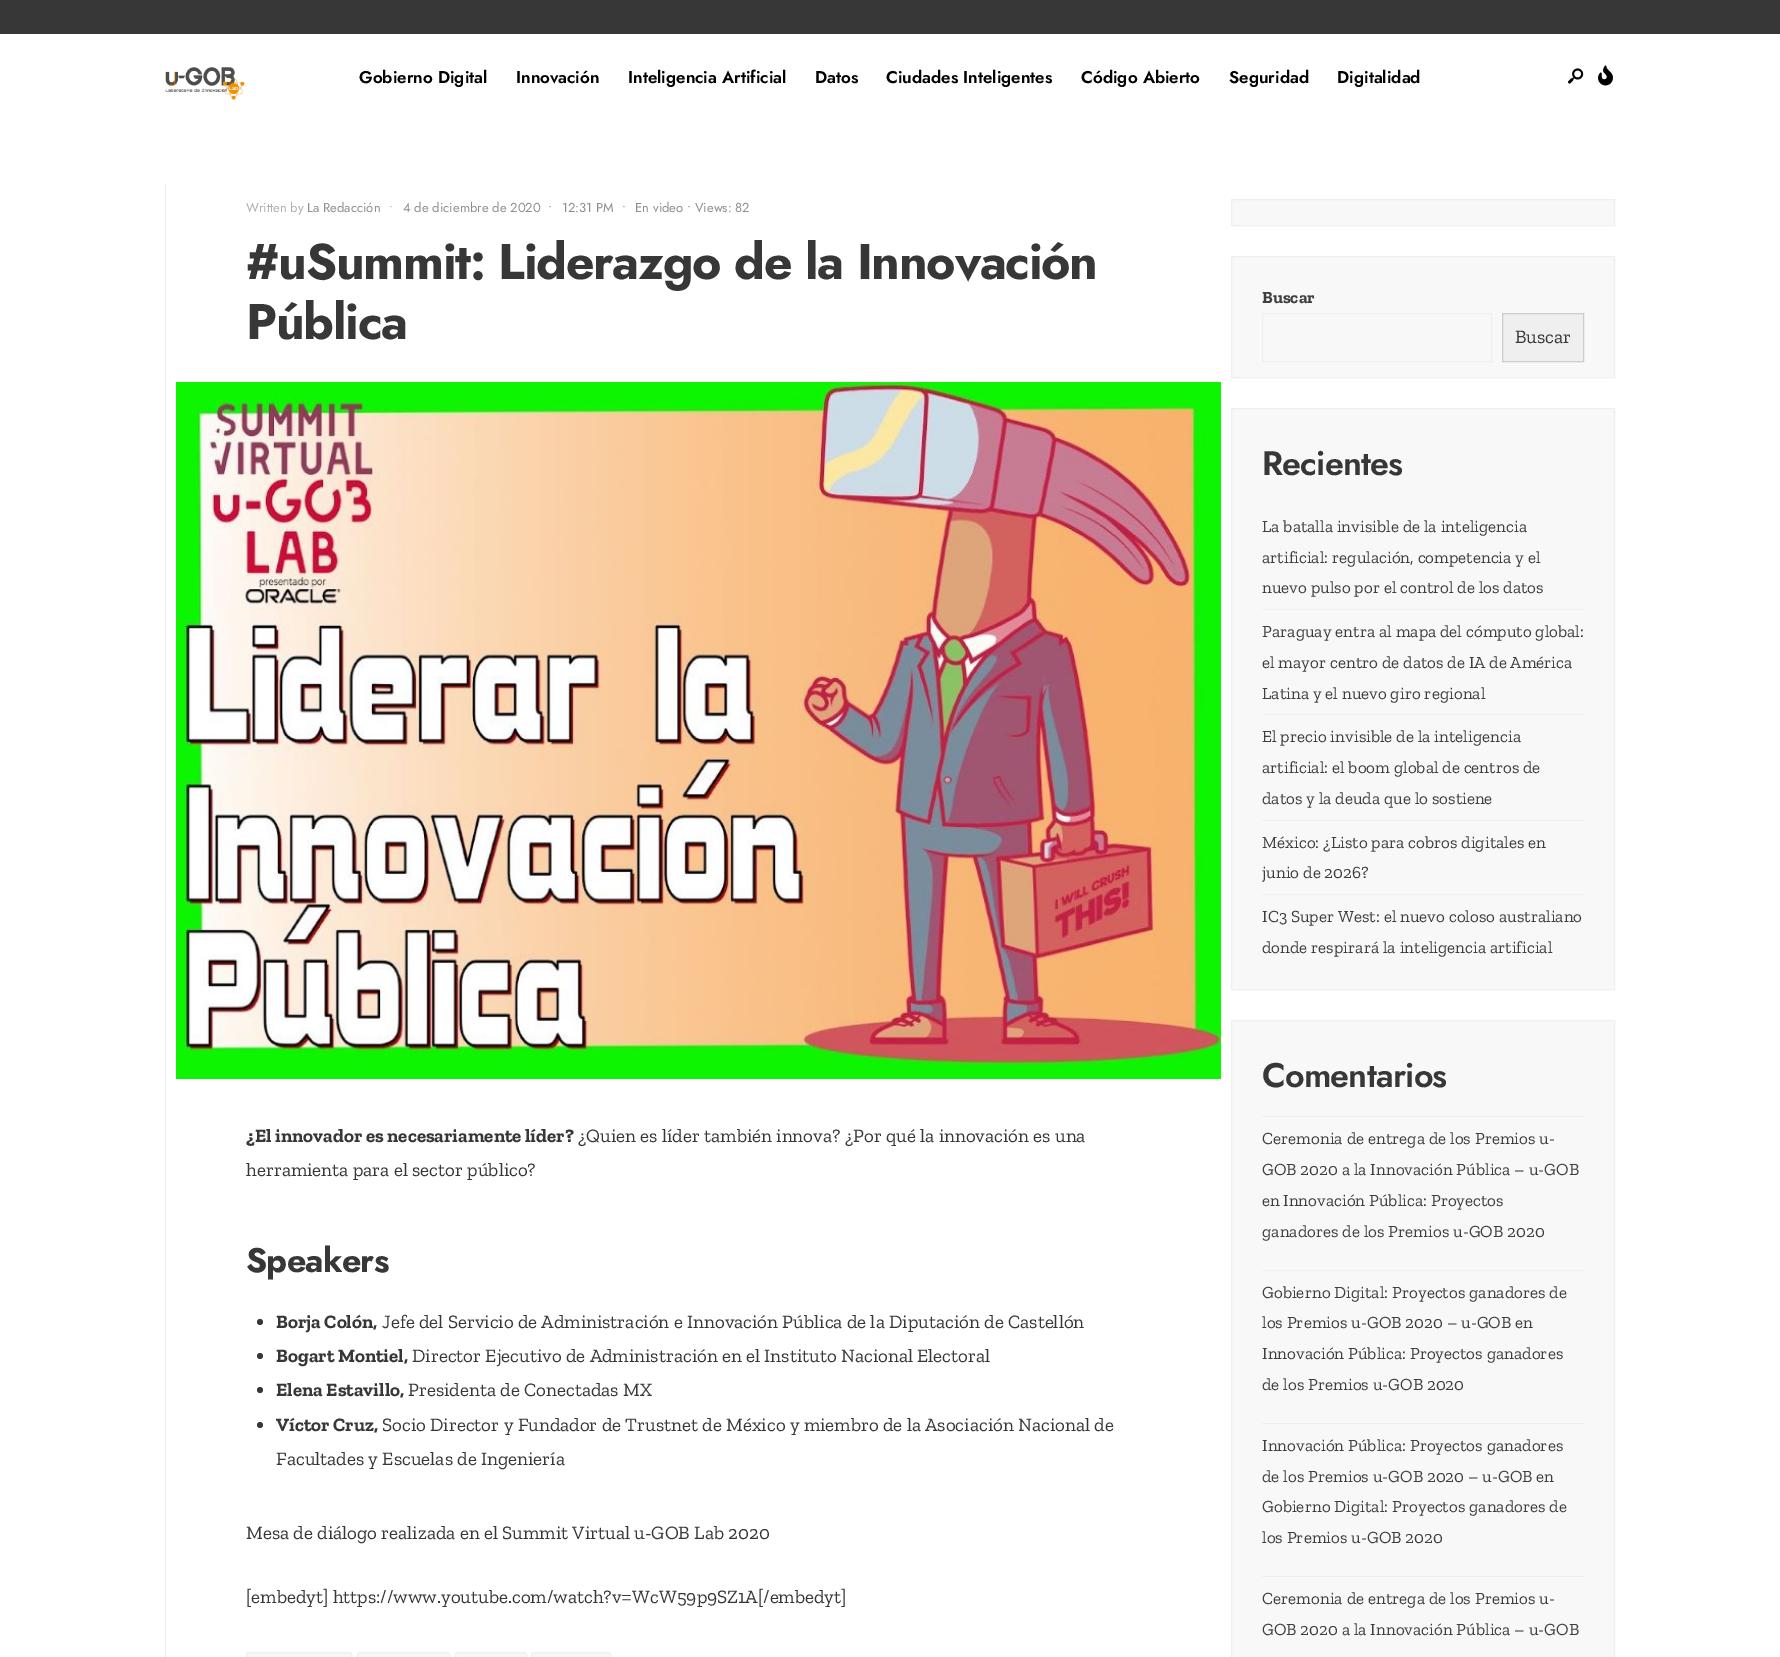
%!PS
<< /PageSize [1780 1657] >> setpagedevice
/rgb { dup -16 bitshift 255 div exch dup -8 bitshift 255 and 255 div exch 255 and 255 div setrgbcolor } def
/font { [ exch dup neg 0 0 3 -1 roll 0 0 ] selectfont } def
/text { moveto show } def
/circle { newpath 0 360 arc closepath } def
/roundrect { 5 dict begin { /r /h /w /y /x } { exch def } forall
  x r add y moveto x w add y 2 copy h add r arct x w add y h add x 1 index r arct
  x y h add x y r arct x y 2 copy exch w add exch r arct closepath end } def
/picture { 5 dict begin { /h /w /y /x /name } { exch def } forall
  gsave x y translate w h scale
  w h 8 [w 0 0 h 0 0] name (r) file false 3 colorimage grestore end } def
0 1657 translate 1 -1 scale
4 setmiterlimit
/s1 { /Jost-SemiBold 17 font 16#000000 rgb } def
/s2 { /Jost-Regular 13 font 16#B0B0B0 rgb } def
/s3 { /Jost-Regular 13 font 16#8E8E8E rgb } def
/s4 { /ZillaSlab-Bold 19 font 16#373737 rgb } def
/s5 { /ZillaSlab-Regular 19 font 16#373737 rgb } def
/s6 { /ZillaSlab-Bold 17.1 font 16#3F3F3F rgb } def
/s7 { /ZillaSlab-Regular 17.1 font 16#3F3F3F rgb } def
16#FFFFFF rgb
0 0 1780 1657 rectfill
16#373737 rgb
0 0 1780 34 rectfill
(pic1.raw) 165 67 80 33 picture
s1
(Gobierno Digital) 359 83 text
(Innovación) 516 83 text
(Inteligencia Artificial) 628 83 text
(Datos) 815 83 text
(Ciudades Inteligentes) 886 83 text
(Código Abierto) 1081 83 text
(Seguridad) 1229 83 text
(Digitalidad) 1337 83 text
(pic2.raw) 1568 68 16 16 picture
(pic3.raw) 1598 65 15 21 picture
16#EFEFEF rgb
165 184 1 1473 rectfill
s2
(Written by) 246 212 text
s3
(La Redacción) 307 212 text
s2
(•) 389 212 text
s3
(4 de diciembre de 2020) 403 212 text
(•) 548 212 text
(12:31 PM) 562 212 text
(•) 622 212 text
(En video • Views: 82) 635 212 text
/Jost-Bold 50 font
16#373737 rgb
246 279 moveto -1.25 0 (#uSummit: Liderazgo de la Innovación) ashow
246 339 moveto -1.25 0 (Pública) ashow
(pic4.raw) 176 382 1045 697 picture
s4
(¿El innovador es necesariamente líder?) 246 1142 text
s5
(¿Quien es líder también innova? ¿Por qué la innovación es una) 578 1142 text
(herramienta para el sector público?) 246 1176 text
/Jost-Bold 34 font
246 1272 moveto -0.8 0 (Speakers) ashow
260 1322 3 circle fill
s4
(Borja Colón,) 276 1328 text
s5
(Jefe del Servicio de Administración e Innovación Pública de la Diputación de Castellón) 382 1328 text
260 1356 3 circle fill
s4
(Bogart Montiel,) 276 1362 text
s5
(Director Ejecutivo de Administración en el Instituto Nacional Electoral) 412 1362 text
260 1390 3 circle fill
s4
(Elena Estavillo,) 276 1396 text
s5
(Presidenta de Conectadas MX) 408 1396 text
260 1425 3 circle fill
s4
(Víctor Cruz,) 276 1431 text
s5
(Socio Director y Fundador de Trustnet de México y miembro de la Asociación Nacional de) 382 1431 text
(Facultades y Escuelas de Ingeniería) 276 1465 text
(Mesa de diálogo realizada en el Summit Virtual u-GOB Lab 2020) 246 1539 text
([embedyt] https://www.youtube.com/watch?v=WcW59p9SZ1A[/embedyt]) 246 1603 text
16#F8F8F8 rgb
246.5 1652.5 105 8 2.5 roundrect gsave fill grestore
16#EFEFEF rgb
stroke
16#F8F8F8 rgb
357.5 1652.5 92 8 2.5 roundrect gsave fill grestore
16#EFEFEF rgb
stroke
16#F8F8F8 rgb
455.5 1652.5 71 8 2.5 roundrect gsave fill grestore
16#EFEFEF rgb
stroke
16#F8F8F8 rgb
531.5 1652.5 79 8 2.5 roundrect gsave fill grestore
16#EFEFEF rgb
stroke
16#F8F8F8 rgb
1231.5 199.5 moveto 1614.5 199.5 lineto 1614.5 225.5 lineto 1231.5 225.5 lineto closepath gsave fill grestore
16#EFEFEF rgb
stroke
16#F8F8F8 rgb
1231.5 256.5 moveto 1614.5 256.5 lineto 1614.5 377.5 lineto 1231.5 377.5 lineto closepath gsave fill grestore
16#EFEFEF rgb
stroke
s6
(Buscar) 1262 303 text
16#EFEFEF rgb
1262.5 313.5 229 48 rectstroke
1502.5 313.5 moveto 1583.5 313.5 lineto 1583.5 361.5 lineto 1502.5 361.5 lineto closepath gsave fill grestore
16#CCCCCC rgb
stroke
s5
(Buscar) 1515 343 text
16#F8F8F8 rgb
1231.5 408.5 moveto 1614.5 408.5 lineto 1614.5 989.5 lineto 1231.5 989.5 lineto closepath gsave fill grestore
16#EFEFEF rgb
stroke
/Jost-SemiBold 34 font
16#373737 rgb
1262 475 moveto -0.8 0 (Recientes) ashow
s7
(La batalla invisible de la inteligencia) 1262 532 text
(artificial: regulación, competencia y el) 1262 563 text
(nuevo pulso por el control de los datos) 1262 593 text
16#EFEFEF rgb
1262 609 322 1 rectfill
s7
(Paraguay entra al mapa del cómputo global:) 1262 637 text
(el mayor centro de datos de IA de América) 1262 668 text
(Latina y el nuevo giro regional) 1262 699 text
16#EFEFEF rgb
1262 714 322 1 rectfill
s7
(El precio invisible de la inteligencia) 1262 742 text
(artificial: el boom global de centros de) 1262 773 text
(datos y la deuda que lo sostiene) 1262 804 text
16#EFEFEF rgb
1262 820 322 1 rectfill
s7
(México: ¿Listo para cobros digitales en) 1262 848 text
gsave
1262 821 322 73 rectclip
(junio de 2026?) 1262 878 text
grestore
16#EFEFEF rgb
1262 894 322 1 rectfill
s7
(IC3 Super West: el nuevo coloso australiano) 1262 922 text
(donde respirará la inteligencia artificial) 1262 953 text
16#F8F8F8 rgb
1231.5 1020.5 moveto 1614.5 1020.5 lineto 1614.5 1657.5 lineto 1231.5 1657.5 lineto closepath gsave fill grestore
16#EFEFEF rgb
stroke
/Jost-SemiBold 34 font
16#373737 rgb
1262 1087 moveto -0.8 0 (Comentarios) ashow
16#EFEFEF rgb
1262 1116 322 1 rectfill
s7
(Ceremonia de entrega de los Premios u-) 1262 1144 text
(GOB 2020 a la Innovación Pública – u-GOB) 1262 1175 text
(en) 1262 1206 text
(Innovación Pública: Proyectos) 1283 1206 text
(ganadores de los Premios u-GOB 2020) 1262 1237 text
16#EFEFEF rgb
1262 1270 322 1 rectfill
s7
(Gobierno Digital: Proyectos ganadores de) 1262 1298 text
(los Premios u-GOB 2020 – u-GOB) 1262 1328 text
(en) 1515 1328 text
(Innovación Pública: Proyectos ganadores) 1262 1359 text
(de los Premios u-GOB 2020) 1262 1390 text
16#EFEFEF rgb
1262 1423 322 1 rectfill
s7
(Innovación Pública: Proyectos ganadores) 1262 1451 text
(de los Premios u-GOB 2020 – u-GOB) 1262 1482 text
(en) 1536 1482 text
(Gobierno Digital: Proyectos ganadores de) 1262 1512 text
(los Premios u-GOB 2020) 1262 1543 text
16#EFEFEF rgb
1262 1576 322 1 rectfill
s7
(Ceremonia de entrega de los Premios u-) 1262 1604 text
(GOB 2020 a la Innovación Pública – u-GOB) 1262 1635 text
showpage
